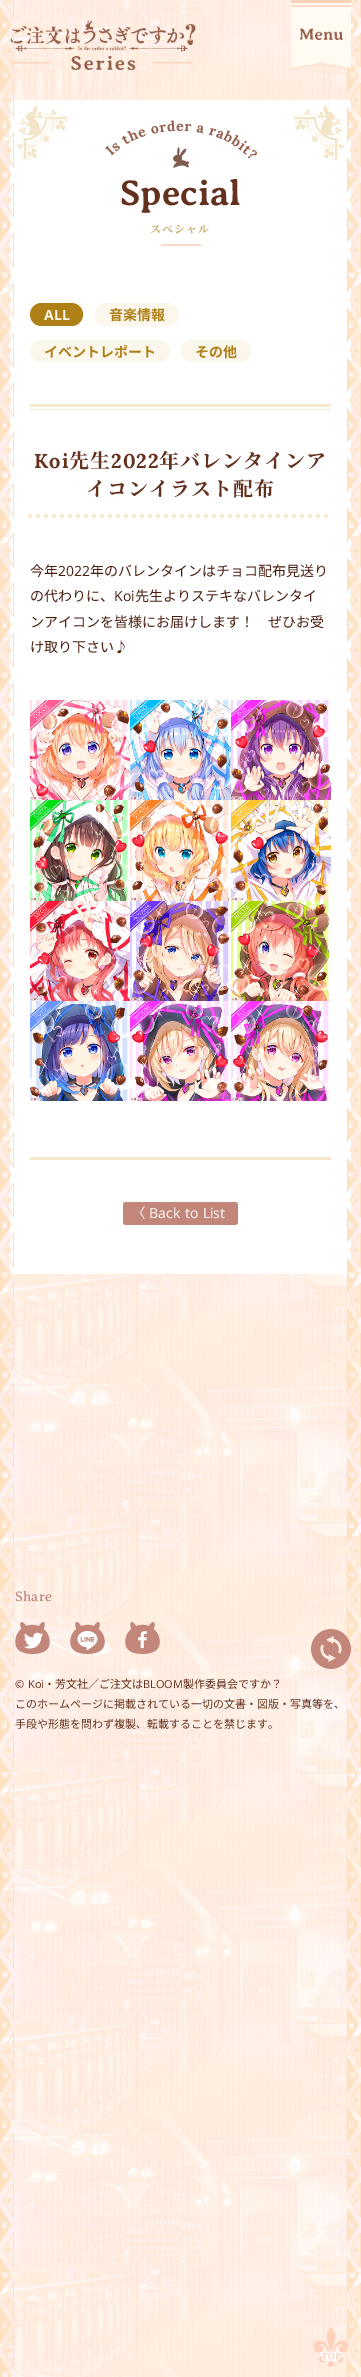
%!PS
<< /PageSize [361 2377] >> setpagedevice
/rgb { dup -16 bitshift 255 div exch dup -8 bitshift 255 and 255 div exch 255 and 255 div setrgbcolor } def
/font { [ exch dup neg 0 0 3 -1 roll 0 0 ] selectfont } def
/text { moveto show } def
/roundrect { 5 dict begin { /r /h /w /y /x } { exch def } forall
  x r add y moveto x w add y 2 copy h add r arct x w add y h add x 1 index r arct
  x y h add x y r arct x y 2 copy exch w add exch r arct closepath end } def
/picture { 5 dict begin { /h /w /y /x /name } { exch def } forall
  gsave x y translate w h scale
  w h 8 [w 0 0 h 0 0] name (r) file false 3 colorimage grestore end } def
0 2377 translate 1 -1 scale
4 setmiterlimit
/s1 { /AveriaSerifLibre-Bold 36 font 16#64311E rgb } def
/s2 { /OpenSans-Bold 14 font 16#FCF7EC rgb } def
/s3 { /NotoSansJP-Bold 14 font 16#B08018 rgb } def
/s4 { /NotoSansJP-Regular 14 font 16#4A1F0F rgb } def
/s5 { /OpenSans-Regular 14 font 16#4A1F0F rgb } def
/s6 { /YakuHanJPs-Regular 14 font 16#FFFFFF rgb } def
/s7 { /AveriaSerifLibre-Regular 14 font 16#C3867A rgb } def
/s8 { /NotoSansJP-Regular 11 font 16#64311E rgb } def
/s9 { /OpenSans-Regular 11 font 16#64311E rgb } def
16#FFFFFF rgb
0 0 361 2377 rectfill
(pic1.raw) 0 0 361 2377 picture
10 100 341 1174 rectfill
(pic3.raw) 10 20 186 50 picture
(pic2.raw) 0 0 14 2377 picture
(pic5.raw) 347 0 14 2377 picture
(pic4.raw) 291 0 60 70 picture
(pic6.raw) 17 105 50 55 picture
(pic7.raw) 294 105 50 55 picture
(pic8.raw) 105 120 152 48 picture
s1
(Special) 120 205 text
/NotoSerifJP-Bold 11 font
16#C7A865 rgb
150 233 moveto 1 0 (スペシャル) ashow
16#FADBCB rgb
161 244 40 2 rectfill
16#B08018 rgb
30 303 53 23 11.5 roundrect fill
s2
(ALL) 44 320 text
95 303 84 23 11.5 roundrect fill
s3
(音楽情報) 109 320 text
16#FCF7EC rgb
30 340 140 22 11 roundrect fill
s3
(イベントレポート) 44 357 text
16#FCF7EC rgb
181 340 70 22 11 roundrect fill
s3
(その他) 195 357 text
16#F6E8CA rgb
30 409 301 1 rectfill
30 1157 301 3 rectfill
30 404 301 3 rectfill
4 setlinewidth
1 setlinecap
[0 8] 0 setdash
30 516 moveto 331 516 lineto stroke
/Lora-Bold 20 font
16#64311E rgb
34 468 moveto 1 0 (Koi) ashow
/NotoSerifJP-Bold 20 font
69 468 moveto 1 0 (先生) ashow
/Lora-Bold 20 font
111 468 moveto 1 0 (2022) ashow
/NotoSerifJP-Bold 20 font
159 468 moveto 1 0 (年バレンタインア) ashow
86 496 moveto 1 0 (イコンイラスト配布) ashow
s4
(今年) 30 576 text
s5
(2022) 58 576 text
s4
(年のバレンタインはチョコ配布見送り) 90 576 text
(の代わりに、) 30 601 text
s5
(Koi) 114 601 text
s4
(先生よりステキなバレンタイ) 135 601 text
(ンアイコンを皆様にお届けします！　ぜひお受) 30 627 text
(け取り下さい♪) 30 652 text
(pic9.raw) 30 700 100 100 picture
(pic10.raw) 130 700 101 100 picture
(pic11.raw) 231 700 100 100 picture
(pic12.raw) 30 800 98 101 picture
(pic13.raw) 130 800 99 101 picture
(pic14.raw) 231 800 100 101 picture
(pic15.raw) 30 901 100 100 picture
(pic16.raw) 130 901 100 100 picture
(pic17.raw) 231 901 99 100 picture
(pic18.raw) 30 1001 98 100 picture
(pic19.raw) 130 1001 101 100 picture
(pic20.raw) 231 1001 98 100 picture
16#C3867A rgb
123 1202 115 23 3 roundrect fill
s6
(〈) 137 1218 text
/OpenSans-Regular 14 font
149 1218 moveto 1 0 32 (Back to List) widthshow
s7
(Share) 15 1601 text
(pic21.raw) 15 1622 35 32 picture
(pic22.raw) 70 1622 35 32 picture
(pic23.raw) 125 1622 35 32 picture
s8
(©) 15 1688 text
s9
(Koi) 28 1688 text
s8
(・芳文社／ご注文は) 44 1688 text
s9
(BLOOM) 143 1688 text
s8
(製作委員会ですか？) 183 1688 text
(このホームページに掲載されている一切の文書・図版・写真等を、) 15 1708 text
(手段や形態を問わず複製、転載することを禁じます。) 15 1728 text
(pic24.raw) 311 1629 40 40 picture
(pic25.raw) 313 2327 36 40 picture
showpage
